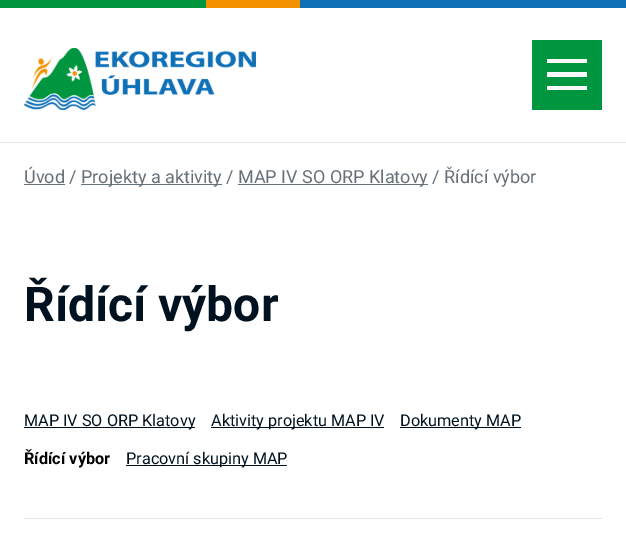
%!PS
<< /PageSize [626 541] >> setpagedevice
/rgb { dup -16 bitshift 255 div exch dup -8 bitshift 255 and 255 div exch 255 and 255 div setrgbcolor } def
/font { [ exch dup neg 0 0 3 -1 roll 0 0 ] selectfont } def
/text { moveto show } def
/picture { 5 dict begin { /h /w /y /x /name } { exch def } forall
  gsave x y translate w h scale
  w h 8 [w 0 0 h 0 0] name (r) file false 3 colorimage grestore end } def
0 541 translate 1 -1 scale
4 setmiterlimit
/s1 { /Roboto-Regular 18 font 16#667179 rgb } def
/s2 { /Roboto-Bold 48 font 16#001220 rgb } def
/s3 { /Roboto-Regular 16.25 font 16#001220 rgb } def
/s4 { /Roboto-Bold 16.25 font 16#000000 rgb } def
16#FFFFFF rgb
0 0 626 541 rectfill
16#E5E5E5 rgb
0 142 626 1 rectfill
(pic1.raw) 0 0 626 8 picture
(pic2.raw) 24 48 232 62 picture
16#009640 rgb
532 40 70 70 rectfill
16#F9F9F9 rgb
547 59 40 4 rectfill
547 86 40 4 rectfill
547 72 40 5 rectfill
16#667179 rgb
24 184 41 1 rectfill
s1
(Úvod /) 24 183 text
81 184 141 1 rectfill
(Projekty a aktivity) 81 183 text
(/) 226 183 text
238 184 190 1 rectfill
(MAP IV SO ORP Klatovy / Řídící výbor) 238 183 text
s2
(Řídící výbor) 24 321 text
24 427 171 1 rectfill
s3
(MAP IV SO ORP Klatovy) 24 426 text
211 427 173 1 rectfill
(Aktivity projektu MAP IV) 211 426 text
400 427 121 1 rectfill
(Dokumenty MAP) 400 426 text
s4
(Řídící výbor) 24 464 text
16#001220 rgb
126 465 161 1 rectfill
s3
(Pracovní skupiny MAP) 126 464 text
16#E5E5E5 rgb
24 518 578 1 rectfill
showpage
